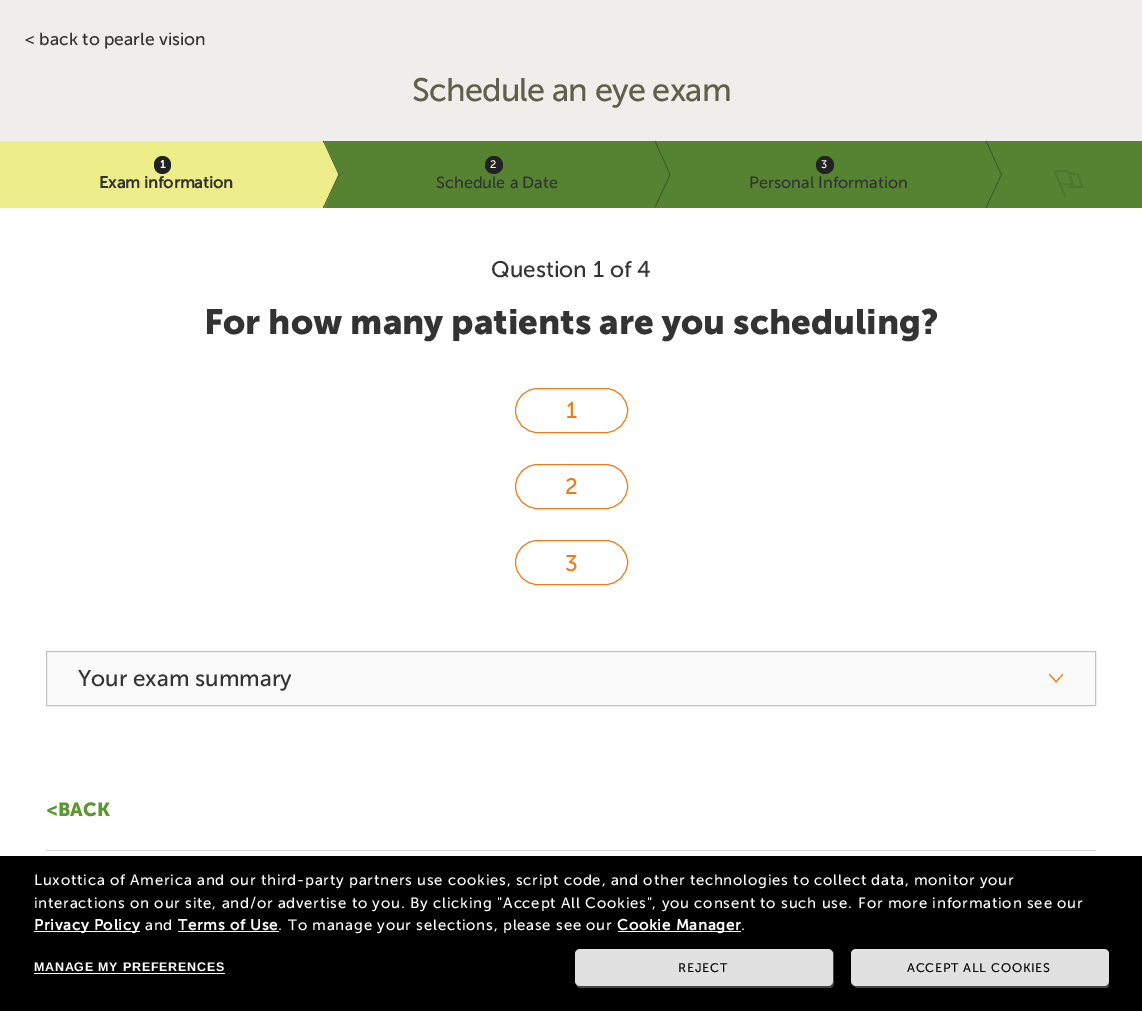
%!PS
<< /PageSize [1142 1011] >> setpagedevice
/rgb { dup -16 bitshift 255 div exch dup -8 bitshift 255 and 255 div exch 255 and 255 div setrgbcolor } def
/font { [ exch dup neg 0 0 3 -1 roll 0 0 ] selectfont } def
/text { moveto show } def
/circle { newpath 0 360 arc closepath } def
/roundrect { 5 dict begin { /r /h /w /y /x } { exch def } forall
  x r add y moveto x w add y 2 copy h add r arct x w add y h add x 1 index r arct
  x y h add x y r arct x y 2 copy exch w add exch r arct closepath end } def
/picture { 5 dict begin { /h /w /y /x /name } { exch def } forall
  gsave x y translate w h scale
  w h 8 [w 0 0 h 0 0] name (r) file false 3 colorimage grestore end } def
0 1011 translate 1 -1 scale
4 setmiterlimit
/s1 { /MuseoSans-Regular 17.5 font 16#333333 rgb } def
/s2 { /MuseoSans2-Bold 11 font 16#FFFFFF rgb } def
/s3 { /MuseoSans2-Bold 16.25 font 16#333333 rgb } def
/s4 { /MuseoSans-Regular 11 font 16#FFFFFF rgb } def
/s5 { /MuseoSans-Regular 16.25 font 16#333333 rgb } def
/s6 { /MuseoSans-Regular 22.5 font 16#333333 rgb } def
/s7 { /MuseoSans-Bold 35 font 16#333333 rgb } def
/s8 { /MuseoSans-Regular 22.5 font 16#E87D1E rgb } def
/s9 { /MuseoSans-Bold 19 font 16#5E9732 rgb } def
16#FFFFFF rgb
0 0 1142 1011 rectfill
16#EFEEEB rgb
0 0 1142 141 rectfill
s1
(< back to pearle vision) 25 45 text
/MuseoSans-Regular 32.5 font
16#5F604B rgb
412 101 moveto -0.8 0 (Schedule an eye exam) ashow
16#EDED8A rgb
0 141 324 67 rectfill
16#3C5A25 rgb
0.7 setlinewidth
323.5 141 moveto 339 174.5 lineto stroke
323.5 207.5 moveto 339 174.5 lineto stroke
16#222222 rgb
154 156 17 18 8.5 roundrect fill
s2
(1) 160 168 text
s3
(Exam information) 99 188 text
16#558332 rgb
324 141 16 67 rectfill
16#EDED8A rgb
324 141 moveto 339 174 lineto 324 208 lineto closepath fill
16#3C5A25 rgb
323.5 141 moveto 339 174.5 lineto stroke
323.5 207.5 moveto 339 174.5 lineto stroke
16#558332 rgb
340 141 802 67 rectfill
16#222222 rgb
494 165 9 circle fill
s4
(2) 490 168 text
s5
(Schedule a Date) 436 188 text
16#3C5A25 rgb
655 141 moveto 670 174.5 lineto stroke
655 207.5 moveto 670 174.5 lineto stroke
16#222222 rgb
825 165 9 circle fill
s4
(3) 821 168 text
s5
(Personal Information) 749 188 text
16#3C5A25 rgb
986 141 moveto 1001.5 174.5 lineto stroke
986 207.5 moveto 1001.5 174.5 lineto stroke
(pic1.raw) 1054 170 30 28 picture
s6
(Question 1 of 4) 491 277 text
s7
(For how many patients are you scheduling?) 204 334 text
16#E87D1E rgb
1 setlinewidth
515.5 388.5 112 44 22 roundrect stroke
s8
(1) 566 418 text
515.5 464.5 112 44 22 roundrect stroke
(2) 565 494 text
515.5 540.5 112 44 22 roundrect stroke
(3) 565 571 text
16#C1C1C1 rgb
46.5 651.5 1049 54 rectstroke
16#FAFAFA rgb
48 653 1047 52 rectfill
s6
(Your exam summary) 78 686 text
(pic2.raw) 1048 673 16 10 picture
s9
(<BACK) 46 816 text
16#D2D2D2 rgb
46 850 1050 1 rectfill
16#000000 rgb
0 856 1142 155 rectfill
/MuseoSans-Regular 15 font
16#FFFFFF rgb
34 885 moveto 0.75 0 (Luxottica of America and our third-party partners use cookies, script code, and other technologies to collect data, monitor your) ashow
34 908 moveto 0.75 0 (interactions on our site, and/or advertise to you.) ashow
410 908 moveto 0.75 0 (By clicking "Accept All Cookies", you consent to such use.) ashow
858 908 moveto 0.75 0 (For more information see our) ashow
34 931 106 1 rectfill
/MuseoSans2-Bold 15 font
34 930 moveto 0.75 0 (Privacy Policy) ashow
/MuseoSans-Regular 15 font
145 930 moveto 0.75 0 (and) ashow
/MuseoSans2-Bold 15 font
178 930 moveto 0.75 0 (Terms of Use) ashow
/MuseoSans-Regular 15 font
278 930 moveto 0.75 0 (.) ashow
178 931 101 1 rectfill
288 930 moveto 0.75 0 (To manage your selections, please see our) ashow
618 931 123 1 rectfill
/MuseoSans2-Bold 15 font
617 930 moveto 0.75 0 (Cookie Manager) ashow
/MuseoSans-Regular 15 font
741 930 moveto 0.75 0 (.) ashow
/LiberationSans-Bold 12.5 font
34 971 moveto 0.75 0 (MANAGE MY PREFERENCES) ashow
34 973 191 1 rectfill
16#454545 rgb
576 985 moveto 577 987 579 988 581 988 curveto 829 988 lineto 832 988 834 986 834 983 curveto 834 955 lineto 834 953 833 951 831 951 curveto 832 951 832 953 832 954 curveto 832 981 lineto 832 984 830 986 828 986 curveto 580 986 lineto 579 986 577 986 576 985 curveto closepath fill
16#E1E1E1 rgb
575 949 258 37 5 roundrect fill
/MuseoSans2-Regular 12.5 font
16#000000 rgb
678 972 moveto 0.75 0 (REJECT) ashow
gsave
34 869 1075 130 rectclip
16#454545 rgb
854 986 moveto 855 987 856 988 858 988 curveto 1105 988 lineto 1108 988 1110 986 1110 983 curveto 1110 955 lineto 1110 953 1109 952 1108 951 curveto 1109 954 lineto 1109 981 lineto 1109 984 1107 986 1104 986 curveto 856 986 lineto closepath fill
grestore
16#E1E1E1 rgb
851 949 258 37 5 roundrect fill
16#000000 rgb
907 972 moveto 0.75 0 (ACCEPT ALL COOKIES) ashow
showpage
